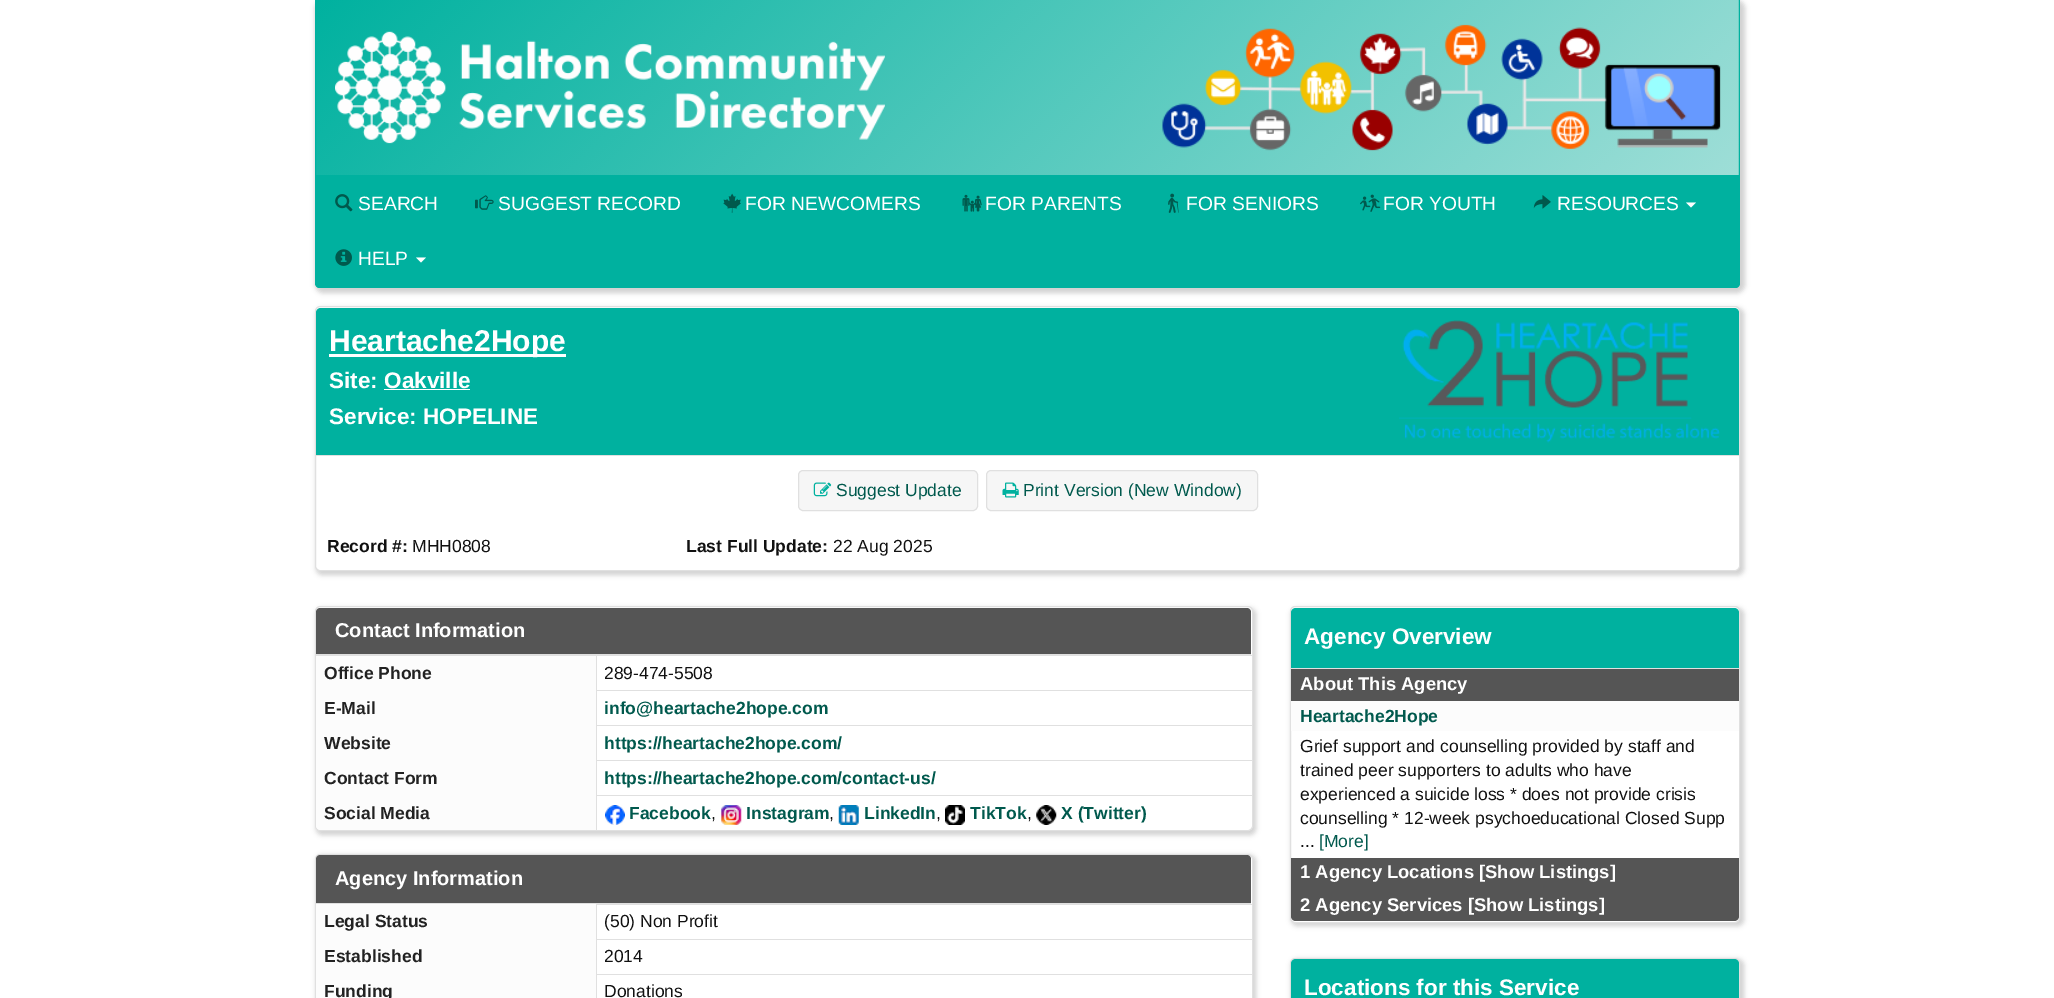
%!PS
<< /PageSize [2054 998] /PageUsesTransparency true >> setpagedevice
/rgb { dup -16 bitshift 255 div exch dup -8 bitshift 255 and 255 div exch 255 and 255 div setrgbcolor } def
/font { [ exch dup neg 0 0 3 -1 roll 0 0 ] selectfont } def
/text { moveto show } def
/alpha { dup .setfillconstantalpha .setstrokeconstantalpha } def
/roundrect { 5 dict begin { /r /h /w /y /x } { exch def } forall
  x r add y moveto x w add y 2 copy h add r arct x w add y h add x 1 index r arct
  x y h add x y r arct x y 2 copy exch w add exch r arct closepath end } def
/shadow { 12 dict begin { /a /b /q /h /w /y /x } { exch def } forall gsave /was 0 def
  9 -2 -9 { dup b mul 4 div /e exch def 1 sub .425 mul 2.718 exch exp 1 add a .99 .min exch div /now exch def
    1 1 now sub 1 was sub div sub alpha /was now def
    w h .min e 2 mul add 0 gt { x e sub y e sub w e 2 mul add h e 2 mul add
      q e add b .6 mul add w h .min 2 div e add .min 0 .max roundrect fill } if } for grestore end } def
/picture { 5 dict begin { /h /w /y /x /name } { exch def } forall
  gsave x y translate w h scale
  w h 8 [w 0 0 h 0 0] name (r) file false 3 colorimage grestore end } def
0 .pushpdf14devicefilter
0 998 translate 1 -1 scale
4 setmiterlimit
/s1 { /LiberationSans-Regular 19.25 font 16#FFFFFF rgb } def
/s2 { /LiberationSans-Bold 30 font 16#FFFFFF rgb } def
/s3 { /LiberationSans-Bold 22.5 font 16#FFFFFF rgb } def
/s4 { /LiberationSans-Regular 17.5 font 16#00594D rgb } def
/s5 { /LiberationSans-Bold 17.5 font 16#111111 rgb } def
/s6 { /LiberationSans-Regular 17.5 font 16#111111 rgb } def
/s7 { /LiberationSans-Bold 20 font 16#FFFFFF rgb } def
/s8 { /LiberationSans-Bold 17.5 font 16#222222 rgb } def
/s9 { /LiberationSans-Bold 17.5 font 16#00594D rgb } def
/s10 { /LiberationSans-Bold 18.4 font 16#FFFFFF rgb } def
16#FFFFFF rgb
0 0 2054 998 rectfill
16#666666 rgb
315 0 1430 293 8 2.5 0.3 shadow
16#00B19F rgb
315 0 moveto 1740 0 lineto 1740 283 lineto 1740 286 1738 288 1735 288 curveto 320 288 lineto 317 288 315 286 315 283 curveto closepath fill
315 0 moveto 1740 0 lineto 1740 282 lineto 1740 285 1738 288 1735 288 curveto 320 288 lineto 317 288 315 285 315 282 curveto closepath 316 0 moveto 1739 0 lineto 1739 282 lineto 1739 285 1737 286 1735 286 curveto 320 286 lineto 318 286 316 285 316 282 curveto closepath eofill
(pic1.raw) 316 0 1423 175 picture
(pic2.raw) 335 31 550 113 picture
(pic3.raw) 335 194 18 18 picture
s1
(SEARCH) 358 210 text
(pic4.raw) 475 195 19 15 picture
(SUGGEST RECORD) 498 210 text
(pic5.raw) 723 193 18 20 picture
(FOR NEWCOMERS) 745 210 text
(pic6.raw) 962 194 20 18 picture
(FOR PARENTS) 985 210 text
(pic7.raw) 1168 193 11 20 picture
(FOR SENIORS) 1186 210 text
(pic8.raw) 1360 194 21 18 picture
(FOR YOUTH) 1383 210 text
(pic9.raw) 1533 195 18 14 picture
(RESOURCES) 1557 210 text
1686 202.5 moveto 1696 202.5 lineto 1691 207.5 lineto closepath fill
(pic10.raw) 335 249 17 17 picture
(HELP) 358 265 text
416 257.5 moveto 426 257.5 lineto 421 262.5 lineto closepath fill
gsave
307 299 moveto 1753 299 lineto 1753 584 lineto 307 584 lineto closepath 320 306 moveto 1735 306 lineto 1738 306 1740 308 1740 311 curveto 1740 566 lineto 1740 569 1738 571 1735 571 curveto 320 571 lineto 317 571 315 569 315 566 curveto 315 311 lineto 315 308 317 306 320 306 curveto closepath eoclip newpath
16#666666 rgb
316 308 1428 267 6 2.5 0.3 shadow
grestore
16#E0E0E0 rgb
315.5 306.5 1424 264 4.5 roundrect stroke
16#00B19F rgb
321 308 moveto 1734 308 lineto 1737 308 1739 310 1739 313 curveto 1739 456 lineto 316 456 lineto 316 313 lineto 316 310 318 308 321 308 curveto closepath fill
16#E0E0E0 rgb
316 455 1423 1 rectfill
16#FFFFFF rgb
329 354 237 3 rectfill
s2
(Heartache2Hope) 329 351 text
s3
(Site: Oakville) 329 388 text
384 389 86 1 rectfill
(Service: HOPELINE) 329 424 text
(pic11.raw) 1399 320 321 123 picture
16#F6F6F6 rgb
798.5 470.5 179 40 4.5 roundrect gsave fill grestore
16#E0E0E0 rgb
stroke
(pic12.raw) 813 482 19 15 picture
s4
(Suggest Update) 836 496 text
16#F6F6F6 rgb
986.5 470.5 271 40 4.5 roundrect gsave fill grestore
16#E0E0E0 rgb
stroke
(pic13.raw) 1002 482 17 16 picture
s4
(Print Version \(New Window\)) 1023 496 text
s5
(Record #:) 327 552 text
s6
(MHH0808) 412 552 text
s5
(Last Full Update:) 686 552 text
s6
(22 Aug 2025) 833 552 text
16#666666 rgb
316 608 940 227 6 2.5 0.3 shadow
16#FFFFFF rgb
315.5 606.5 937 224 4.5 roundrect gsave fill grestore
16#E0E0E0 rgb
stroke
16#555555 rgb
320 608 moveto 1247 608 lineto 1249 608 1251 610 1251 612 curveto 1251 655 lineto 316 655 lineto 316 612 lineto 316 610 318 608 320 608 curveto closepath fill
16#E0E0E0 rgb
316 654 935 1 rectfill
s7
(Contact Information) 335 637 text
16#E0E0E0 rgb
316 655 937 1 rectfill
16#FCFCFC rgb
316 656 280 140 rectfill
s8
(Office Phone) 324 679 text
s6
(289-474-5508) 604 679 text
s8
(E-Mail) 324 714 text
16#E0E0E0 rgb
596 690 657 1 rectfill
596 725 657 1 rectfill
596 760 657 1 rectfill
596 795 657 1 rectfill
596 795 1 36 rectfill
596 760 1 36 rectfill
596 725 1 36 rectfill
596 655 1 71 rectfill
s9
(info@heartache2hope.com) 604 714 text
s8
(Website) 324 749 text
s9
(https://heartache2hope.com/) 604 749 text
s8
(Contact Form) 324 784 text
s9
(https://heartache2hope.com/contact-us/) 604 784 text
16#FCFCFC rgb
316 796 moveto 596 796 lineto 596 830 lineto 321 830 lineto 318 830 316 828 316 825 curveto closepath fill
s8
(Social Media) 324 819 text
(pic14.raw) 605 805 20 20 picture
s9
(Facebook) 629 819 text
s6
(,) 711 819 text
(pic15.raw) 721 805 21 20 picture
s9
(Instagram) 746 819 text
s6
(,) 829 819 text
(pic16.raw) 838 805 21 20 picture
s9
(LinkedIn) 864 819 text
s6
(,) 936 819 text
(pic17.raw) 945 805 20 20 picture
s9
(TikTok) 970 819 text
s6
(,) 1027 819 text
(pic18.raw) 1036 805 21 20 picture
s9
(X \(Twitter\)) 1061 819 text
16#666666 rgb
316 855 940 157 6 2.5 0.3 shadow
16#FFFFFF rgb
315.5 854.5 937 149 4.5 roundrect gsave fill grestore
16#E0E0E0 rgb
stroke
16#555555 rgb
320 855 moveto 1247 855 lineto 1249 855 1251 857 1251 859 curveto 1251 904 lineto 316 904 lineto 316 859 lineto 316 857 318 855 320 855 curveto closepath fill
16#E0E0E0 rgb
316 903 935 1 rectfill
s7
(Agency Information) 335 885 text
16#FCFCFC rgb
316 904 280 94 rectfill
s8
(Legal Status) 324 927 text
16#E0E0E0 rgb
596 904 657 1 rectfill
596 939 657 1 rectfill
596 974 657 1 rectfill
596 974 1 24 rectfill
596 939 1 36 rectfill
596 904 1 36 rectfill
s6
(\(50\) Non Profit) 604 927 text
s8
(Established) 324 962 text
s6
(2014) 604 962 text
s8
(Funding) 324 997 text
s6
(Donations) 604 997 text
gsave
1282 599 moveto 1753 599 lineto 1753 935 lineto 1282 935 lineto closepath 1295 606 moveto 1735 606 lineto 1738 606 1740 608 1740 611 curveto 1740 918 lineto 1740 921 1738 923 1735 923 curveto 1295 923 lineto 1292 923 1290 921 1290 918 curveto 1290 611 lineto 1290 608 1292 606 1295 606 curveto closepath eoclip newpath
16#666666 rgb
1291 608 453 318 6 2.5 0.3 shadow
grestore
16#E0E0E0 rgb
1290.5 606.5 449 316 4.5 roundrect stroke
16#00B19F rgb
1296 608 moveto 1734 608 lineto 1737 608 1739 610 1739 613 curveto 1739 669 lineto 1291 669 lineto 1291 613 lineto 1291 610 1293 608 1296 608 curveto closepath fill
16#E0E0E0 rgb
1291 668 448 1 rectfill
s3
(Agency Overview) 1304 644 text
16#555555 rgb
1291 669 448 32 rectfill
s10
(About This Agency) 1300 690 text
16#FCFCFC rgb
1291 701 448 30 rectfill
s9
(Heartache2Hope) 1300 722 text
s6
(Grief support and counselling provided by staff and) 1300 752 text
(trained peer supporters to adults who have) 1300 776 text
(experienced a suicide loss * does not provide crisis) 1300 800 text
(counselling * 12-week psychoeducational Closed Supp) 1300 824 text
(...) 1300 847 text
s4
([More]) 1319 847 text
16#555555 rgb
1291 858 448 31 rectfill
s10
(1 Agency Locations [Show Listings]) 1300 878 text
16#555555 rgb
1291 889 moveto 1739 889 lineto 1739 916 lineto 1739 919 1737 921 1734 921 curveto 1296 921 lineto 1293 921 1291 919 1291 916 curveto closepath fill
s10
(2 Agency Services [Show Listings]) 1300 911 text
16#666666 rgb
1291 959 453 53 6 2.5 0.3 shadow
16#E0E0E0 rgb
1290.5 958.5 449 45 4.5 roundrect stroke
16#00B19F rgb
1296 959 moveto 1734 959 lineto 1737 959 1739 961 1739 964 curveto 1739 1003 lineto 1291 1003 lineto 1291 964 lineto 1291 961 1293 959 1296 959 curveto closepath fill
s3
(Locations for this Service) 1304 995 text
.poppdf14devicefilter showpage
